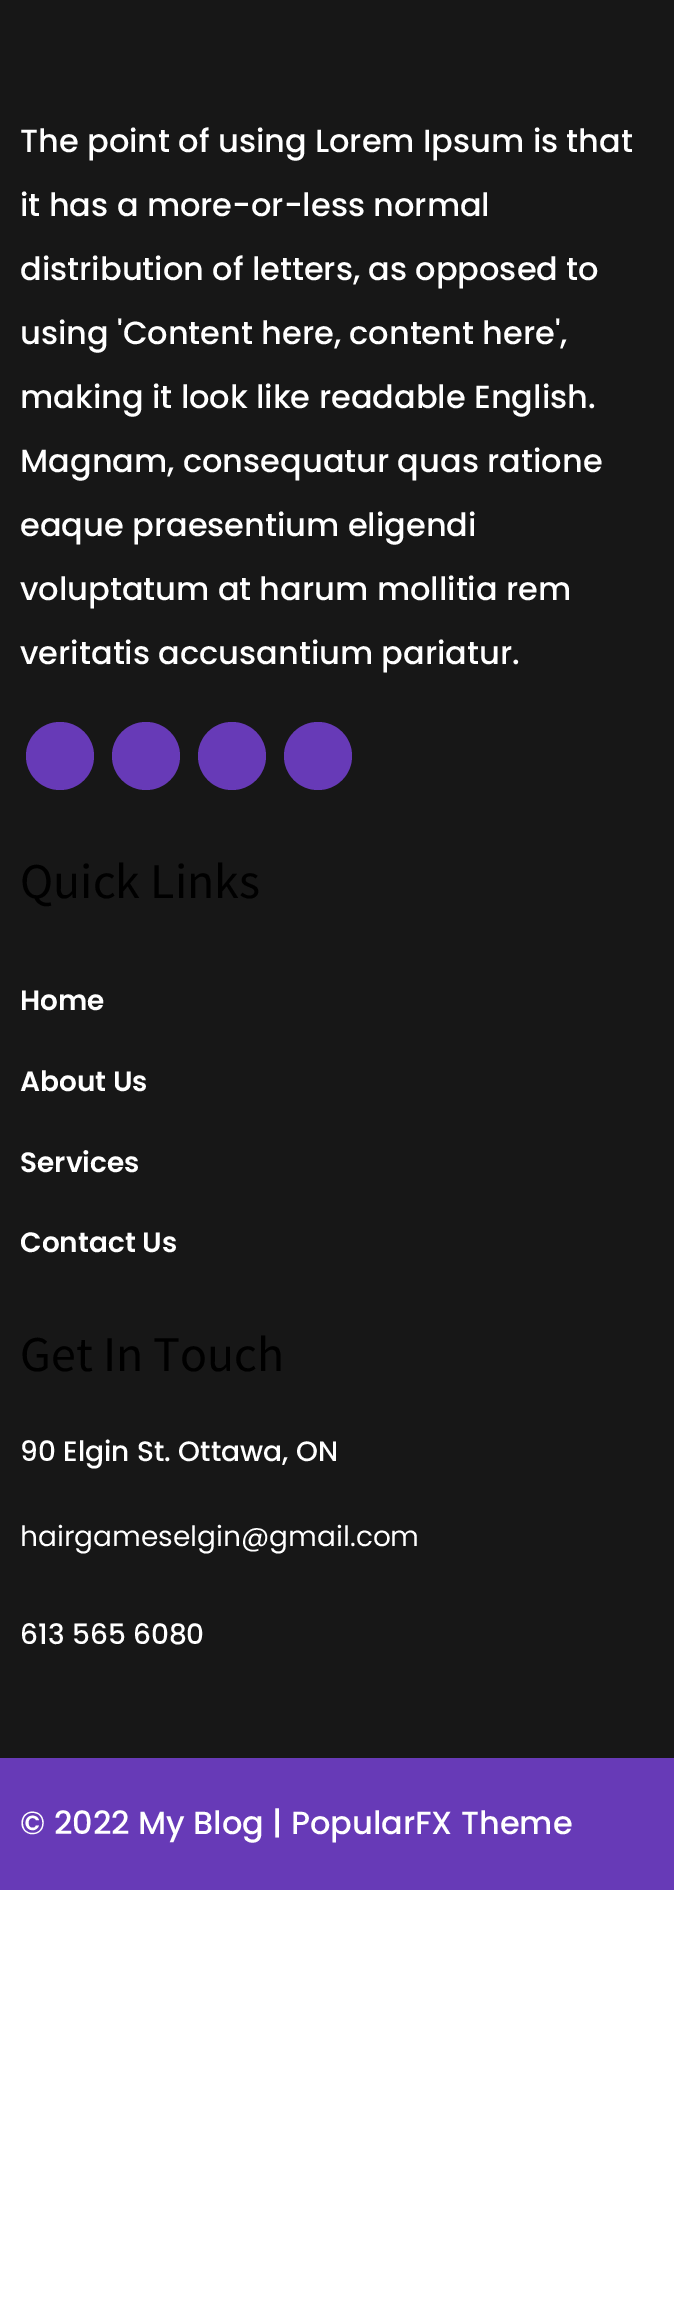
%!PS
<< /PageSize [674 2302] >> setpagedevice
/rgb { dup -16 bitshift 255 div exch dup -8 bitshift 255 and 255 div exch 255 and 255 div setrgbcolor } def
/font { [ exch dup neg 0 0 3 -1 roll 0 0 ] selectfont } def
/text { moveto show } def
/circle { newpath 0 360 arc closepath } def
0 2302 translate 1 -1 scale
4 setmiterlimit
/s1 { /Poppins-Medium 32 font 16#FFFFFF rgb } def
/s2 { /SourceSansPro-Regular 50 font 16#000000 rgb } def
/s3 { /Poppins-SemiBold 28 font 16#FFFFFF rgb } def
/s4 { /Poppins-Medium 28 font 16#FFFFFF rgb } def
/s5 { /Poppins-Regular 28 font 16#FFFFFF rgb } def
16#FFFFFF rgb
0 0 674 2302 rectfill
16#171717 rgb
0 0 674 1758 rectfill
s1
(The point of using Lorem Ipsum is that) 20 152 text
(it has a more-or-less normal) 20 216 text
(distribution of letters, as opposed to) 20 280 text
(using 'Content here, content here',) 20 344 text
(making it look like readable English.) 20 408 text
(Magnam, consequatur quas ratione) 20 472 text
(eaque praesentium eligendi) 20 536 text
(voluptatum at harum mollitia rem) 20 600 text
(veritatis accusantium pariatur.) 20 664 text
16#673AB7 rgb
60 756 34 circle fill
146 756 34 circle fill
232 756 34 circle fill
318 756 34 circle fill
s2
(Quick Links) 20 898 text
s3
(Home) 20 1010 text
(About Us) 20 1091 text
(Services) 20 1172 text
(Contact Us) 20 1252 text
s2
(Get In Touch) 20 1371 text
s4
(90 Elgin St. Ottawa, ON) 20 1461 text
s5
(hairgameselgin@gmail.com) 20 1546 text
s4
(613 565 6080) 20 1644 text
16#673AB7 rgb
0 1758 674 132 rectfill
s1
(© 2022 My Blog | PopularFX Theme) 20 1834 text
showpage
